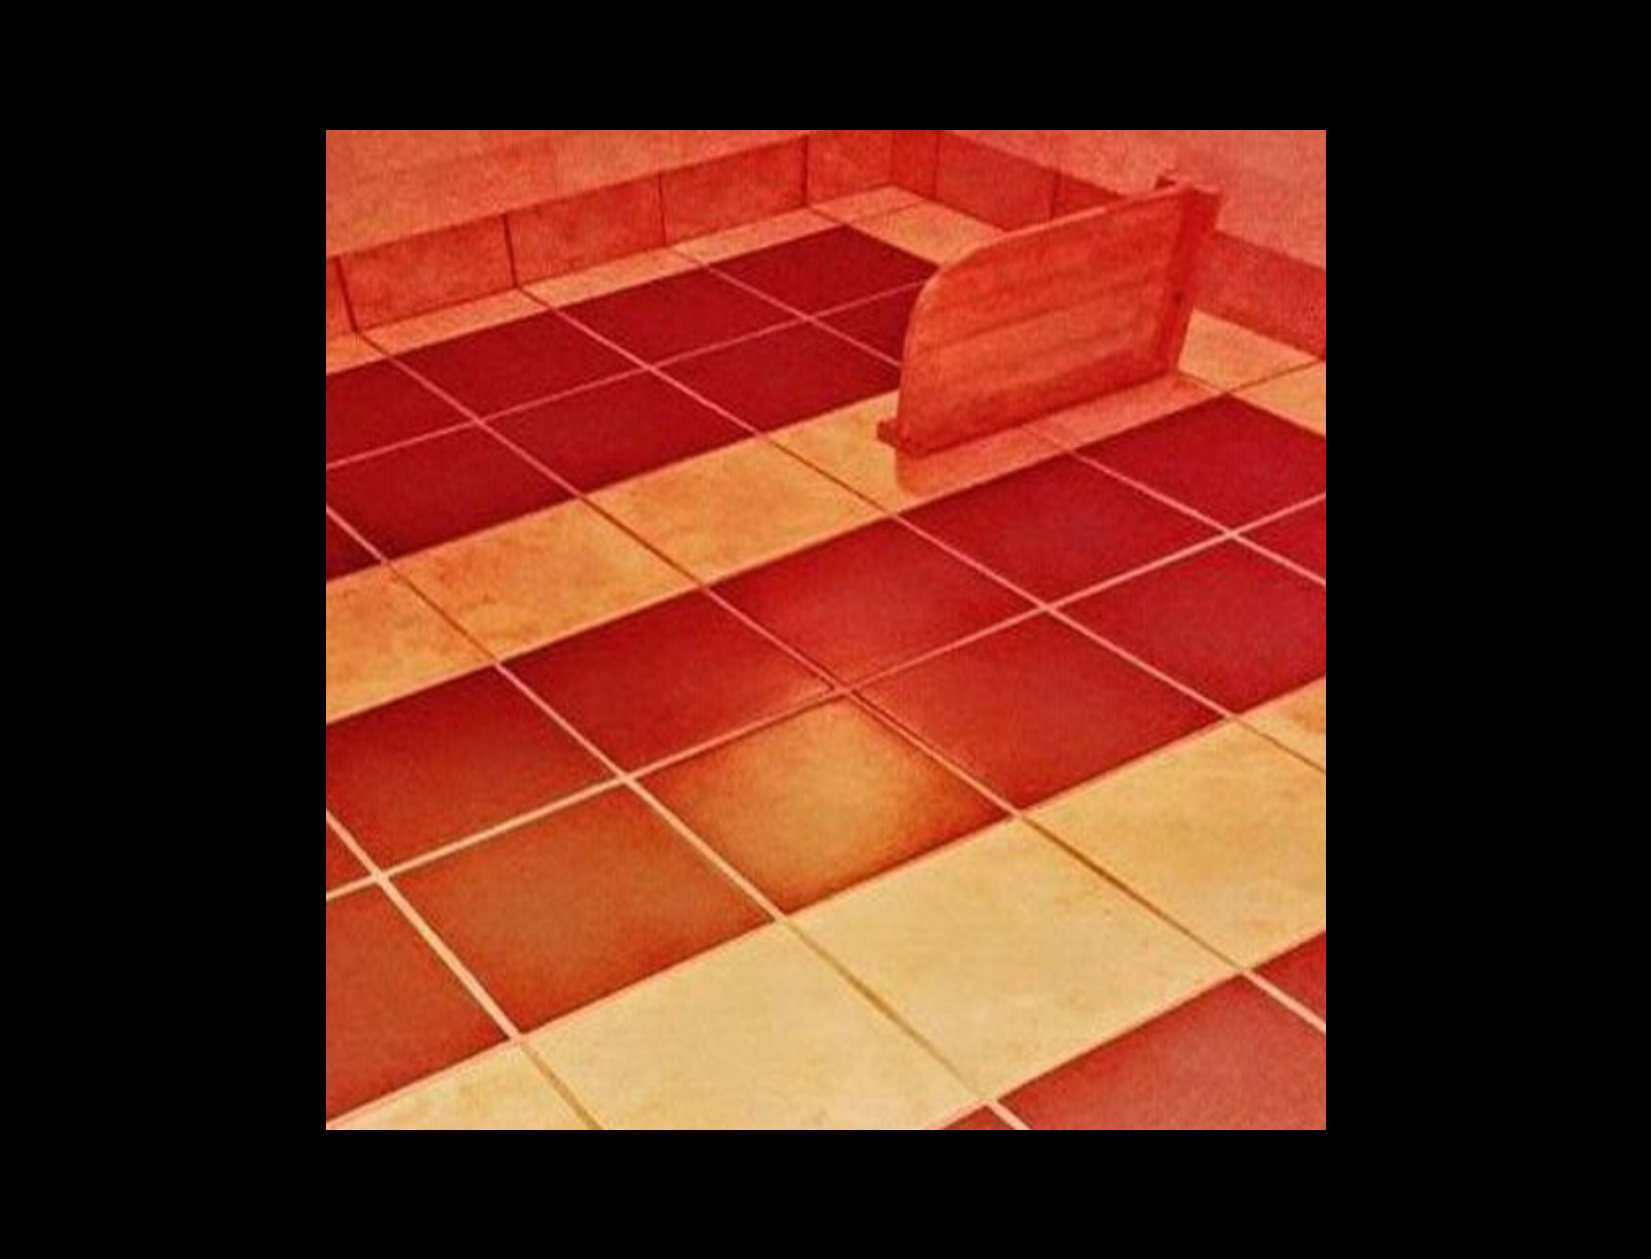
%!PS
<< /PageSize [1651 1259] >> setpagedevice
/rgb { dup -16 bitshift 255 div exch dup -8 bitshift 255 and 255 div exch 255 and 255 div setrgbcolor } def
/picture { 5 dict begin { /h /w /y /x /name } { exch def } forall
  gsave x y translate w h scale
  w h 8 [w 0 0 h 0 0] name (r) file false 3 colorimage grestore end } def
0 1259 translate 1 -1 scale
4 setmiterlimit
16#000000 rgb
0 0 1651 1259 rectfill
(pic1.raw) 326 130 1000 1000 picture
showpage
